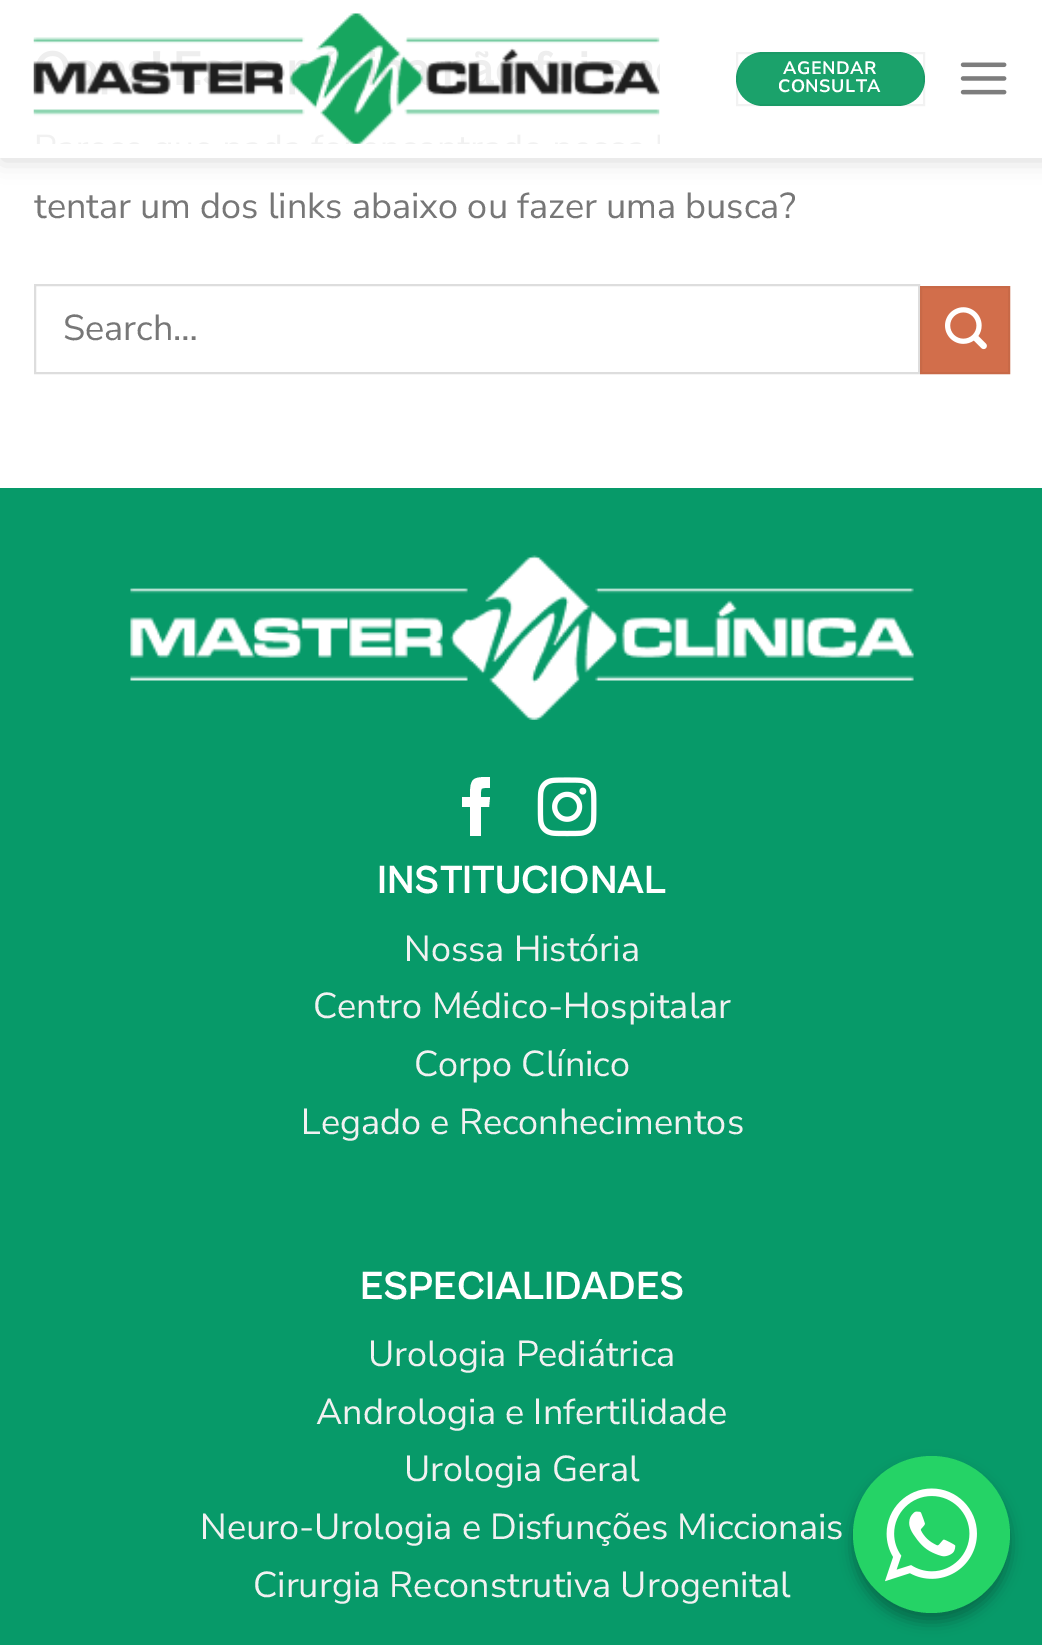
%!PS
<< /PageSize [1042 1645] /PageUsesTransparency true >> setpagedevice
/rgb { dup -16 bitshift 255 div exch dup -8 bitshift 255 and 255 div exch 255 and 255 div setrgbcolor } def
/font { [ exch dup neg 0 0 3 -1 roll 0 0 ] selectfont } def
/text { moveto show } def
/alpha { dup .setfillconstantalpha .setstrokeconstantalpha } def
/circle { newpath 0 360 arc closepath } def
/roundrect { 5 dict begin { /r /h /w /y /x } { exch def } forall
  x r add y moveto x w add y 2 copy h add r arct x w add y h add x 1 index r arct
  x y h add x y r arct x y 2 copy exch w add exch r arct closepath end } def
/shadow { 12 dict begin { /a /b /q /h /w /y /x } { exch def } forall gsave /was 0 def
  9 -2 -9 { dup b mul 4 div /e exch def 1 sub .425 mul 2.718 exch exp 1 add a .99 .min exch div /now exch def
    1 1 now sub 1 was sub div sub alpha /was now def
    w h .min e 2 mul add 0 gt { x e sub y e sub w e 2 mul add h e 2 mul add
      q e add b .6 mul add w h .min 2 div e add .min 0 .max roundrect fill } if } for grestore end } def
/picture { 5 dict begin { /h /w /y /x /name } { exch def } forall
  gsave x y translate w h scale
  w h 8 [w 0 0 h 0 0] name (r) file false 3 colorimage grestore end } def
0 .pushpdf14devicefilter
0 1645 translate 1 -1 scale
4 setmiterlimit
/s1 { /NunitoSans-Regular 36 font 16#777777 rgb } def
/s2 { /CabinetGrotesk-Bold 40.5 font 16#FFFFFF rgb } def
/s3 { /NunitoSans-Regular 36 font 16#F1F1F1 rgb } def
16#FFFFFF rgb
0 0 1042 1645 rectfill
gsave
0 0 moveto 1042 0 lineto 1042 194 lineto 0 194 lineto closepath 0 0 moveto 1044 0 lineto 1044 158 lineto 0 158 lineto closepath eoclip newpath
16#000000 rgb
2 2 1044 158 0 11 0.15 shadow
grestore
(pic1.raw) 33 13 627 131 picture
16#1BA26B rgb
736 52 189 54 27 roundrect fill
0.05 alpha
16#000000 rgb
2 setlinewidth
737 53 187 52 rectstroke
/NunitoSans-Bold 18 font
1 alpha
16#FFFFFF rgb
783 74 moveto 0.5 0 (AGENDAR) ashow
778 92 moveto 0.5 0 (CONSULTA) ashow
(pic2.raw) 960 62 47 33 picture
0.9 alpha
0 157 1042 1 rectfill
1 alpha
s1
(tentar um dos links abaixo ou fazer uma busca?) 34 218 text
16#DDDDDD rgb
35 285 884 88 rectstroke
s1
(Search…) 63 340 text
16#D26E4B rgb
921 287 moveto 1009 287 lineto 1009 373 lineto 921 373 lineto closepath gsave fill grestore
16#C86947 rgb
stroke
(pic3.raw) 945 307 42 43 picture
16#079A69 rgb
0 488 1042 1157 rectfill
(pic4.raw) 130 555 784 165 picture
16#FFFFFF rgb
481 836 moveto 470 836 lineto 470 807 lineto 462 807 lineto 462 797 lineto 470 797 lineto 470 778 472 777 490 777 curveto 490 788 lineto 480 788 481 787 481 797 curveto 490 797 lineto 489 807 lineto 481 807 lineto closepath fill
(pic5.raw) 537 777 60 60 picture
s2
(INSTITUCIONAL) 377 893 text
s3
(Nossa História) 404 961 text
(Centro Médico-Hospitalar) 313 1018 text
(Corpo Clínico) 414 1076 text
(Legado e Reconhecimentos) 301 1134 text
s2
(ESPECIALIDADES) 360 1299 text
s3
(Urologia Pediátrica) 368 1366 text
(Andrologia e Infertilidade) 316 1424 text
(Urologia Geral) 404 1481 text
(Neuro-Urologia e Disfunções Miccionais) 200 1539 text
(Cirurgia Reconstrutiva Urogenital) 253 1597 text
16#000000 rgb
853 1465 157 157 78.5 7 0.3 shadow
16#25D366 rgb
931.5 1534.5 78.5 circle fill
(pic6.raw) 885 1488 92 94 picture
.poppdf14devicefilter showpage
